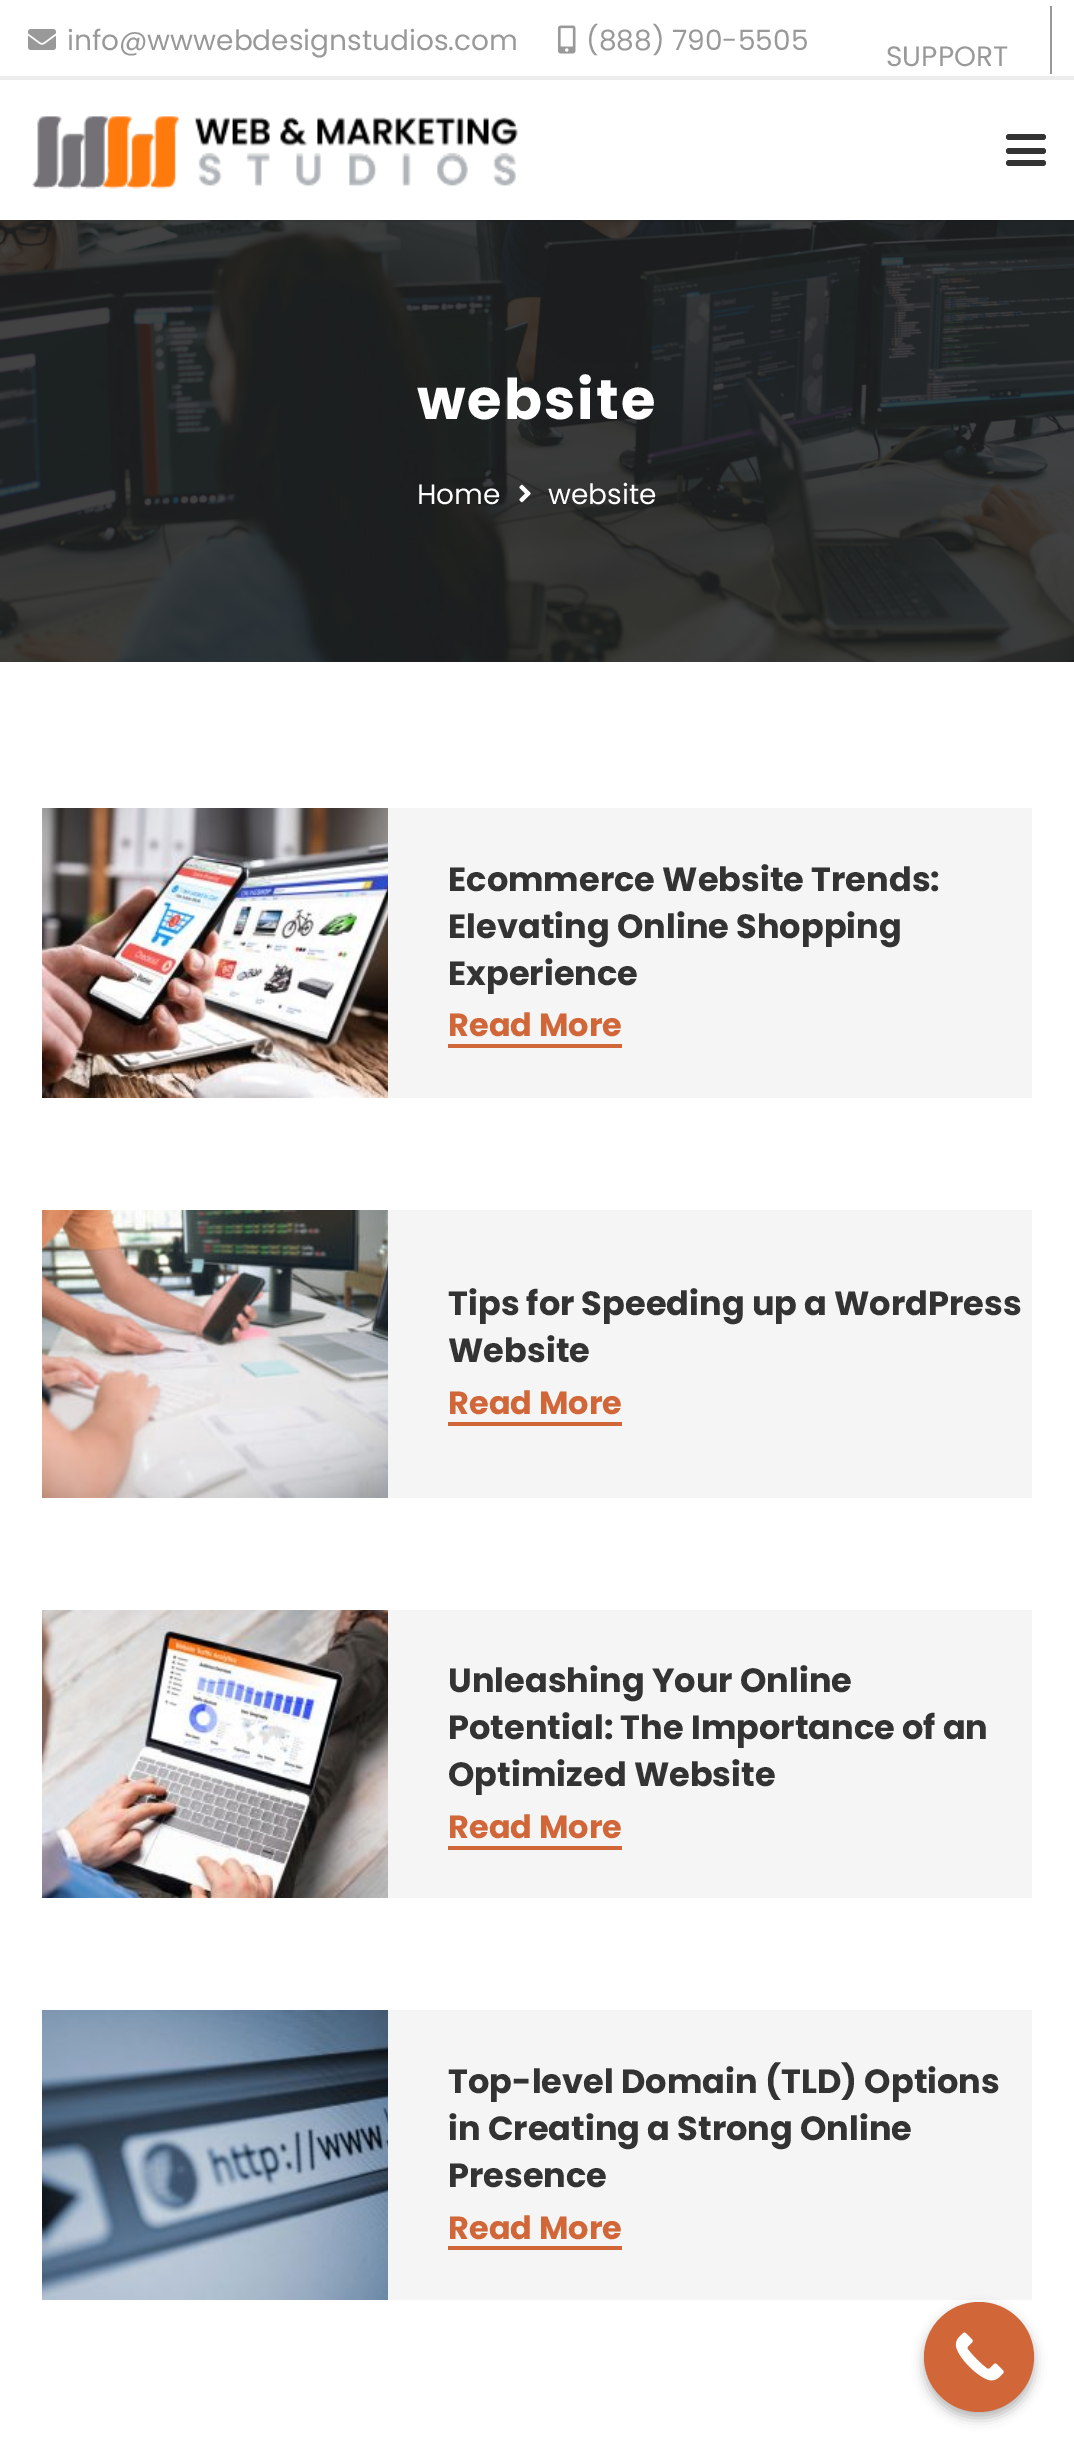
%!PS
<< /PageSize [1074 2441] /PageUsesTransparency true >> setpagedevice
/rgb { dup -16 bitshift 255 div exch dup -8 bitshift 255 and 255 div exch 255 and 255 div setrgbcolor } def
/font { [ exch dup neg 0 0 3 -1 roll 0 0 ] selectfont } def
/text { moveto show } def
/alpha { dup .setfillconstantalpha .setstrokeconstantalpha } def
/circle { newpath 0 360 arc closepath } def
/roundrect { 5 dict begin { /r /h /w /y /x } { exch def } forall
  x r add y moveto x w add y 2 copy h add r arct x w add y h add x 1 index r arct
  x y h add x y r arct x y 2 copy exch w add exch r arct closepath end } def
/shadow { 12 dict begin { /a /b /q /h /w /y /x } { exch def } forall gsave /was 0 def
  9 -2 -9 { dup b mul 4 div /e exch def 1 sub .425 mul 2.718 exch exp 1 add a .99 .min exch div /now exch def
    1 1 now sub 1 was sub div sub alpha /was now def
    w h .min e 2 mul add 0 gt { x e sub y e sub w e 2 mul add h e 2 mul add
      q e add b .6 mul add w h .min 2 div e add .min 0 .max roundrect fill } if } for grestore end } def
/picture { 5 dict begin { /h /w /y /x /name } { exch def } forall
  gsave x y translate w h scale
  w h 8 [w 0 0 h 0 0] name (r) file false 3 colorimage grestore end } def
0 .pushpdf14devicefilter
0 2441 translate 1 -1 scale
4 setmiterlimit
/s1 { /Poppins-Regular 28 font 16#999999 rgb } def
/s2 { /Poppins-Regular 28 font 16#FFFFFF rgb } def
/s3 { /Poppins-Bold 33.6 font 16#333333 rgb } def
/s4 { /Poppins-Bold 32 font 16#D16739 rgb } def
16#FFFFFF rgb
0 0 1074 2441 rectfill
16#ECECEC rgb
0 76 1074 4 rectfill
(pic1.raw) 28 29 28 21 picture
s1
(info@wwwebdesignstudios.com) 67 50 text
(pic2.raw) 558 25 18 29 picture
(\(888\) 790-5505) 586 50 text
1050 6 2 68 rectfill
(SUPPORT) 886 66 text
(pic4.raw) 0 220 1074 442 picture
0.08 alpha
16#000000 rgb
0 220 1074 2 rectfill
1 alpha
(pic3.raw) 32 116 486 73 picture
16#333333 rgb
1006 148 40 6 3 roundrect fill
1006 134 40 6 3 roundrect fill
1006 160 40 6 3 roundrect fill
/Poppins-Bold 56 font
16#FFFFFF rgb
417 419 moveto 2 0 (website) ashow
s2
(Home) 417 504 text
(pic5.raw) 519 484 12 19 picture
(website) 548 504 text
16#F5F5F5 rgb
388 808 644 290 rectfill
(pic6.raw) 42 808 346 290 picture
s3
(Ecommerce Website Trends:) 448 891 text
(Elevating Online Shopping) 448 938 text
(Experience) 448 985 text
16#D16739 rgb
448 1044 174 4 rectfill
s4
(Read More) 448 1036 text
16#F5F5F5 rgb
388 1210 644 288 rectfill
(pic7.raw) 42 1210 346 288 picture
s3
(Tips for Speeding up a WordPress) 448 1315 text
(Website) 448 1362 text
16#D16739 rgb
448 1422 174 4 rectfill
s4
(Read More) 448 1414 text
16#F5F5F5 rgb
388 1610 644 288 rectfill
(pic8.raw) 42 1610 346 288 picture
s3
(Unleashing Your Online) 448 1692 text
(Potential: The Importance of an) 448 1739 text
(Optimized Website) 448 1786 text
16#D16739 rgb
448 1846 174 4 rectfill
s4
(Read More) 448 1838 text
16#F5F5F5 rgb
388 2010 644 290 rectfill
(pic9.raw) 42 2010 346 290 picture
s3
(Top-level Domain \(TLD\) Options) 448 2093 text
(in Creating a Strong Online) 448 2140 text
(Presence) 448 2187 text
16#D16739 rgb
448 2246 174 4 rectfill
s4
(Read More) 448 2239 text
16#000000 rgb
924 2308 110 110 55 6 0.3 shadow
16#D16739 rgb
979 2357 55 circle fill
(pic10.raw) 955 2332 49 49 picture
.poppdf14devicefilter showpage
